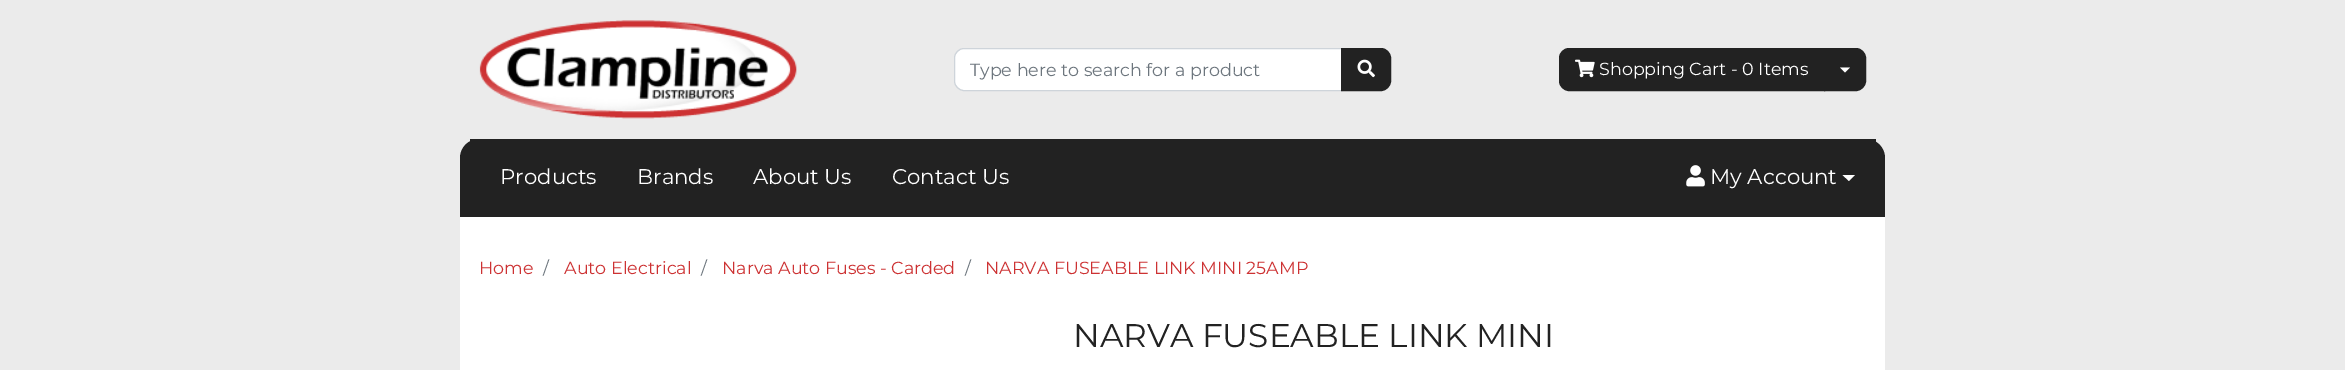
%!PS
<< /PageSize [2345 370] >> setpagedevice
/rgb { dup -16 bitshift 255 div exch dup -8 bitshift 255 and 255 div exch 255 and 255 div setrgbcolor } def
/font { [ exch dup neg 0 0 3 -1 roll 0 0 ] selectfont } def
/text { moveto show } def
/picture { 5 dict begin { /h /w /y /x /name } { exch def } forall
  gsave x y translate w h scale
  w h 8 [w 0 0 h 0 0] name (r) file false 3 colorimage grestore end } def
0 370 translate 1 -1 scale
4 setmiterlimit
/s1 { /Montserrat-Regular 17.5 font 16#6C757D rgb } def
/s2 { /Montserrat-Regular 17.5 font 16#FFFFFF rgb } def
/s3 { /Montserrat-Regular 21.25 font 16#FFFFFF rgb } def
/s4 { /Montserrat-Regular 17.5 font 16#CD3233 rgb } def
/s5 { /Montserrat-Regular 32.75 font 16#222222 rgb } def
16#EBEBEB rgb
0 0 2345 370 rectfill
(pic1.raw) 479 20 318 99 picture
16#FFFFFF rgb
964 49 moveto 1341 49 lineto 1341 90 lineto 964 90 lineto 959 90 955 86 955 81 curveto 955 58 lineto 955 53 959 49 964 49 curveto closepath fill
16#CED4DA rgb
964 48.5 moveto 1342.5 48.5 lineto 1342.5 90.5 lineto 964 90.5 lineto 959 90.5 954.5 86 954.5 81 curveto 954.5 58 lineto 954.5 53 959 48.5 964 48.5 curveto closepath stroke
s1
(Type here to search for a product) 970 76 text
16#222222 rgb
1341.5 48.5 moveto 1381 48.5 lineto 1386 48.5 1390.5 53 1390.5 58 curveto 1390.5 81 lineto 1390.5 86 1386 90.5 1381 90.5 curveto 1341.5 90.5 lineto closepath gsave fill grestore
stroke
(pic2.raw) 1357 59 18 19 picture
1569 48.5 moveto 1824.5 48.5 lineto 1824.5 90.5 lineto 1569 90.5 lineto 1564 90.5 1559.5 86 1559.5 81 curveto 1559.5 58 lineto 1559.5 53 1564 48.5 1569 48.5 curveto closepath gsave fill grestore
stroke
(pic3.raw) 1575 59 20 19 picture
s2
(Shopping Cart - 0 Items) 1599 75 text
16#222222 rgb
1824.5 48.5 moveto 1856 48.5 lineto 1861 48.5 1865.5 53 1865.5 58 curveto 1865.5 81 lineto 1865.5 86 1861 90.5 1856 90.5 curveto 1824.5 90.5 lineto closepath gsave fill grestore
stroke
16#FFFFFF rgb
1840 67.5 moveto 1850 67.5 lineto 1845 72.5 lineto closepath fill
16#222222 rgb
479 139 moveto 1866 139 lineto 1876.5 139 1885 147.5 1885 158 curveto 1885 216 lineto 460 216 lineto 460 158 lineto 460 147.5 468.5 139 479 139 curveto closepath fill
470 139 1406 3 rectfill
460 216 1425 1 rectfill
s3
(Products) 500 184 text
(Brands) 637 184 text
(About Us) 753 184 text
(Contact Us) 892 184 text
(pic4.raw) 1686 165 19 22 picture
(My Account) 1710 184 text
1842.5 175 moveto 1855 175 lineto 1849 181 lineto closepath fill
460 217 1425 153 rectfill
s4
(Home) 479 274 text
s1
(/) 543 274 text
s4
(Auto Electrical) 564 274 text
s1
(/) 701 274 text
s4
(Narva Auto Fuses - Carded) 722 274 text
s1
(/) 965 274 text
s4
(NARVA FUSEABLE LINK MINI 25AMP) 985 274 text
s5
(NARVA FUSEABLE LINK MINI) 1073 347 text
showpage
